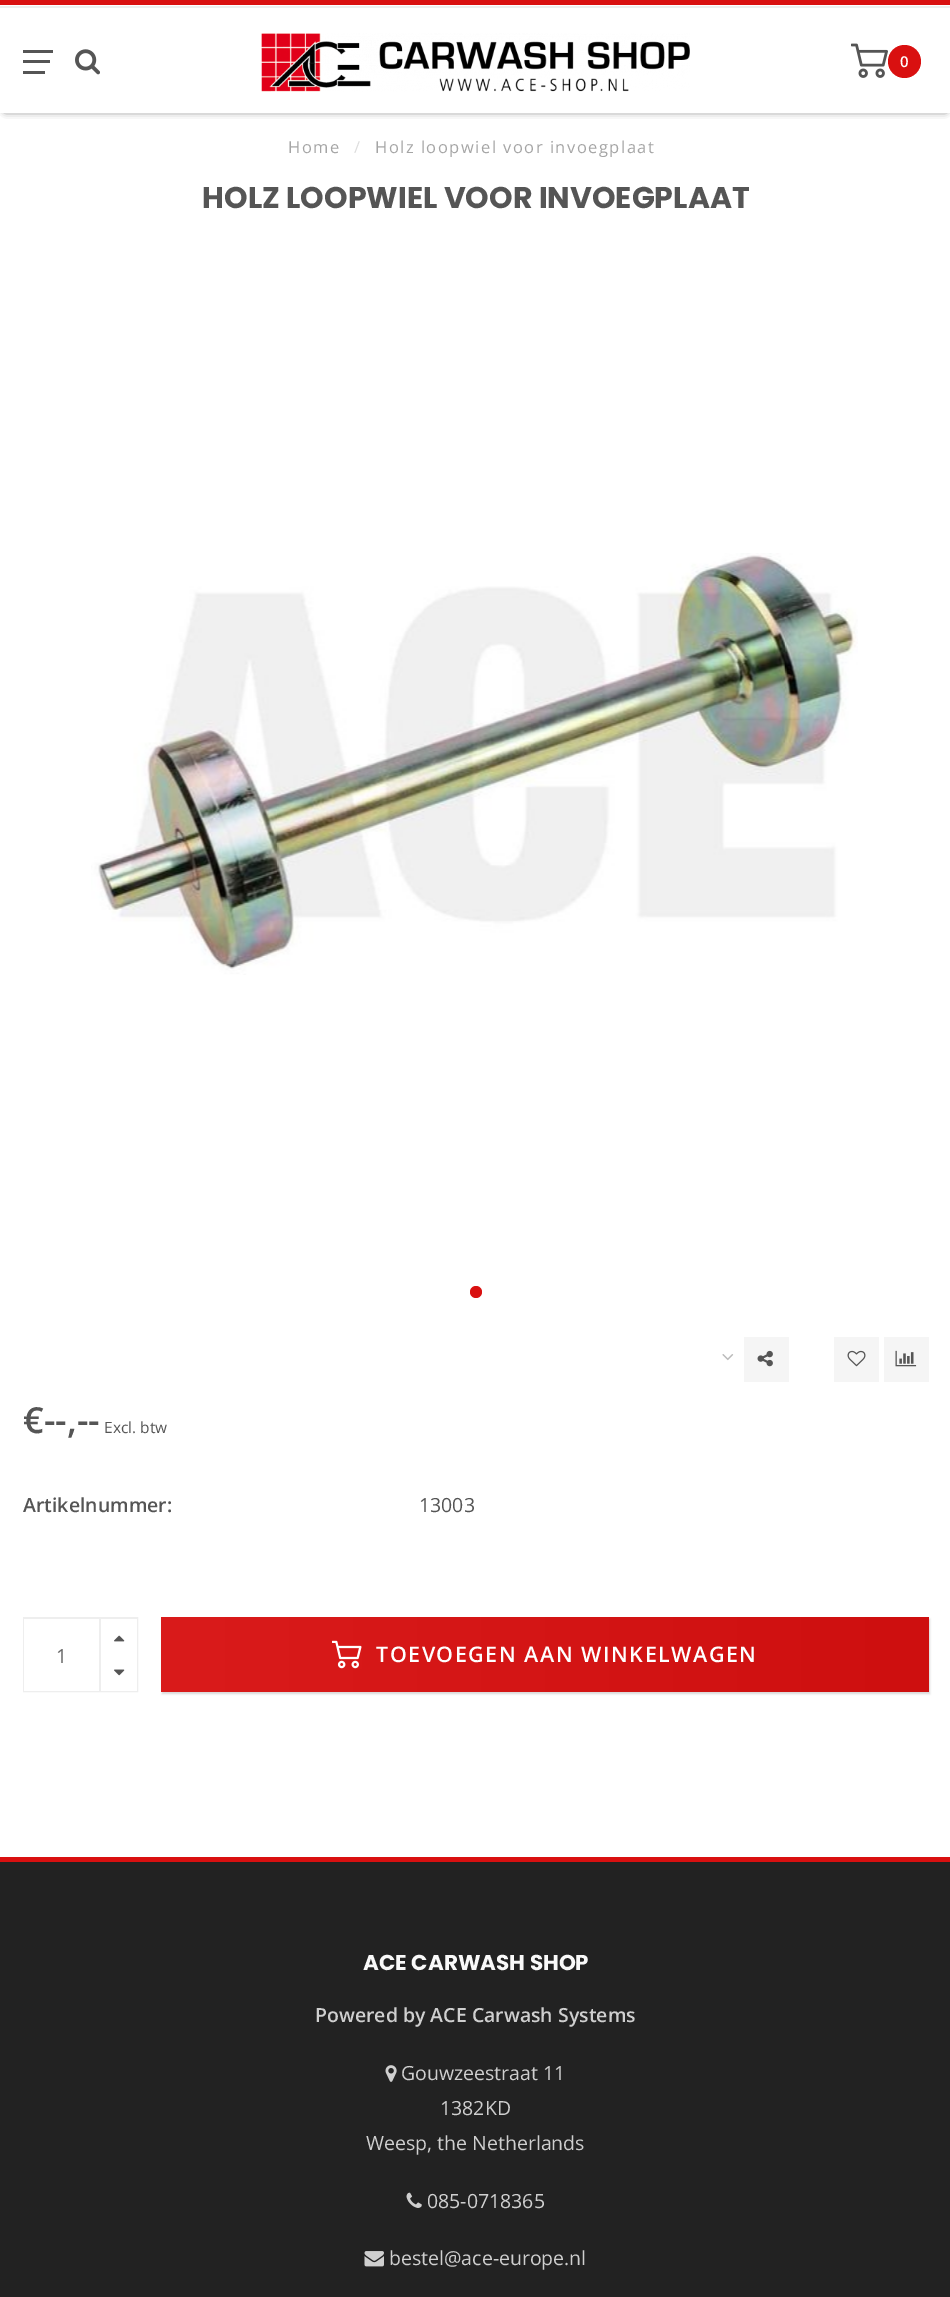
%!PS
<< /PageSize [950 2297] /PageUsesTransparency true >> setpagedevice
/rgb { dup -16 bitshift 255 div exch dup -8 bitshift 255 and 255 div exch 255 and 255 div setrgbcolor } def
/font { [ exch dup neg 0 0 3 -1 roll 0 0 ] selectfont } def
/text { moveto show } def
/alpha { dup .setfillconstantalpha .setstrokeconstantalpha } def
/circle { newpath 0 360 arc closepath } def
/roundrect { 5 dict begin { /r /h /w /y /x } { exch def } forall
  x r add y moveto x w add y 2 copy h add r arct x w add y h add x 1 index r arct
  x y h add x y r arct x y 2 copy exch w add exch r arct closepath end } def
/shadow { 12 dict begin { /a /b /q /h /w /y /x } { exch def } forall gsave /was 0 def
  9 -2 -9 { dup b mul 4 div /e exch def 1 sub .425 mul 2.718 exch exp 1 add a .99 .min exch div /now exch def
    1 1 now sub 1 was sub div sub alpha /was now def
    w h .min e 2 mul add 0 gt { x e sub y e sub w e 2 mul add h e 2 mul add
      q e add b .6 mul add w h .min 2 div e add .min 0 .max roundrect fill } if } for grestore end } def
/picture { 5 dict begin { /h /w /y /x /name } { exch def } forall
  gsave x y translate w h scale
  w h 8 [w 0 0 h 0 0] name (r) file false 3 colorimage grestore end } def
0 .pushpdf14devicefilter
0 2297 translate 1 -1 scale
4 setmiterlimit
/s1 { /OpenSans-SemiBold 15 font 16#FFFFFF rgb } def
/s2 { /Poppins-Bold 30 font 16#555555 rgb } def
/s3 { /OpenSans-SemiBold 36 font 16#555555 rgb } def
/s4 { /OpenSans-Regular 15.5 font 16#555555 rgb } def
/s5 { /OpenSans-SemiBold 19.5 font 16#555555 rgb } def
/s6 { /OpenSans-Regular 19.5 font 16#555555 rgb } def
/s7 { /OpenSans-Regular 19.5 font 16#666666 rgb } def
/s8 { /Poppins-Bold 21.5 font 16#F9F9F9 rgb } def
/s9 { /OpenSans-SemiBold 19.5 font 16#CFCFCF rgb } def
/s10 { /OpenSans-Regular 19.5 font 16#CFCFCF rgb } def
16#FFFFFF rgb
0 0 950 2297 rectfill
16#D91010 rgb
0 0 950 5 rectfill
16#EEEEEE rgb
0 6 950 2 rectfill
16#000000 rgb
6 17 939 93 0 4 1 shadow
16#FFFFFF rgb
0 8 950 105 rectfill
16#555555 rgb
23 50 30 3 rectfill
23 60 27 3 rectfill
23 71 22 3 rectfill
(pic1.raw) 75 49 25 26 picture
(pic2.raw) 261 33 429 59 picture
(pic3.raw) 851 43 37 35 picture
16#D91010 rgb
904.5 61.5 16.5 circle fill
s1
(0) 900 67 text
/OpenSans-Regular 16.5 font
16#A5A5A5 rgb
288 153 moveto 1.5 0 (Home) ashow
16#DDDDDD rgb
354 153 moveto 1.5 0 (/) ashow
16#A5A5A5 rgb
375 153 moveto 1.5 0 (Holz loopwiel voor invoegplaat) ashow
s2
(HOLZ LOOPWIEL VOOR INVOEGPLAAT) 202 208 text
(pic4.raw) 91 553 767 422 picture
16#D91010 rgb
476 1292 6 circle fill
(pic5.raw) 722 1354 12 7 picture
16#F5F5F5 rgb
744 1337 45 45 rectfill
(pic6.raw) 757 1350 16 17 picture
834 1337 45 45 rectfill
(pic7.raw) 847 1350 19 17 picture
884 1337 45 45 rectfill
(pic8.raw) 895 1350 22 17 picture
s3
(€--,--) 23 1433 text
s4
(Excl. btw) 104 1433 text
s5
(Artikelnummer:) 23 1512 text
s6
(13003) 419 1512 text
16#EEEEEE rgb
2 setlinewidth
24 1618 113 73 rectstroke
16#FFFFFF rgb
24 1619 113 72 rectfill
s7
(1) 56 1663 text
16#EEEEEE rgb
99 1619 2 72 rectfill
(pic9.raw) 114 1635 11 7 picture
(pic10.raw) 114 1669 11 7 picture
16#000000 rgb
162 1619 768 75 0 1 0.15 shadow
gsave 161 1617 moveto 929 1617 lineto 929 1692 lineto 161 1692 lineto closepath clip newpath
<< /ShadingType 2 /ColorSpace /DeviceRGB /Coords [161 1655 929 1655] /Extend [true true] /Function << /FunctionType 2 /Domain [0 1] /C0 [0.855 0.106 0.106] /C1 [0.808 0.059 0.059] /N 1 >> >> shfill grestore
(pic11.raw) 332 1640 30 29 picture
/OpenSans-SemiBold 21.5 font
16#FFFFFF rgb
376 1662 moveto 1.5 0 (TOEVOEGEN AAN WINKELWAGEN) ashow
16#222222 rgb
0 1862 950 435 rectfill
16#D91010 rgb
0 1857 950 5 rectfill
s8
(ACE CARWASH SHOP) 363 1970 text
s9
(Powered by ACE Carwash Systems) 315 2022 text
(pic12.raw) 385 2065 12 17 picture
s10
(Gouwzeestraat 11) 401 2080 text
(1382KD) 440 2115 text
(Weesp, the Netherlands) 366 2150 text
(pic13.raw) 406 2192 16 16 picture
(085-0718365) 427 2208 text
(pic14.raw) 364 2251 20 16 picture
(bestel@ace-europe.nl) 389 2265 text
.poppdf14devicefilter showpage
